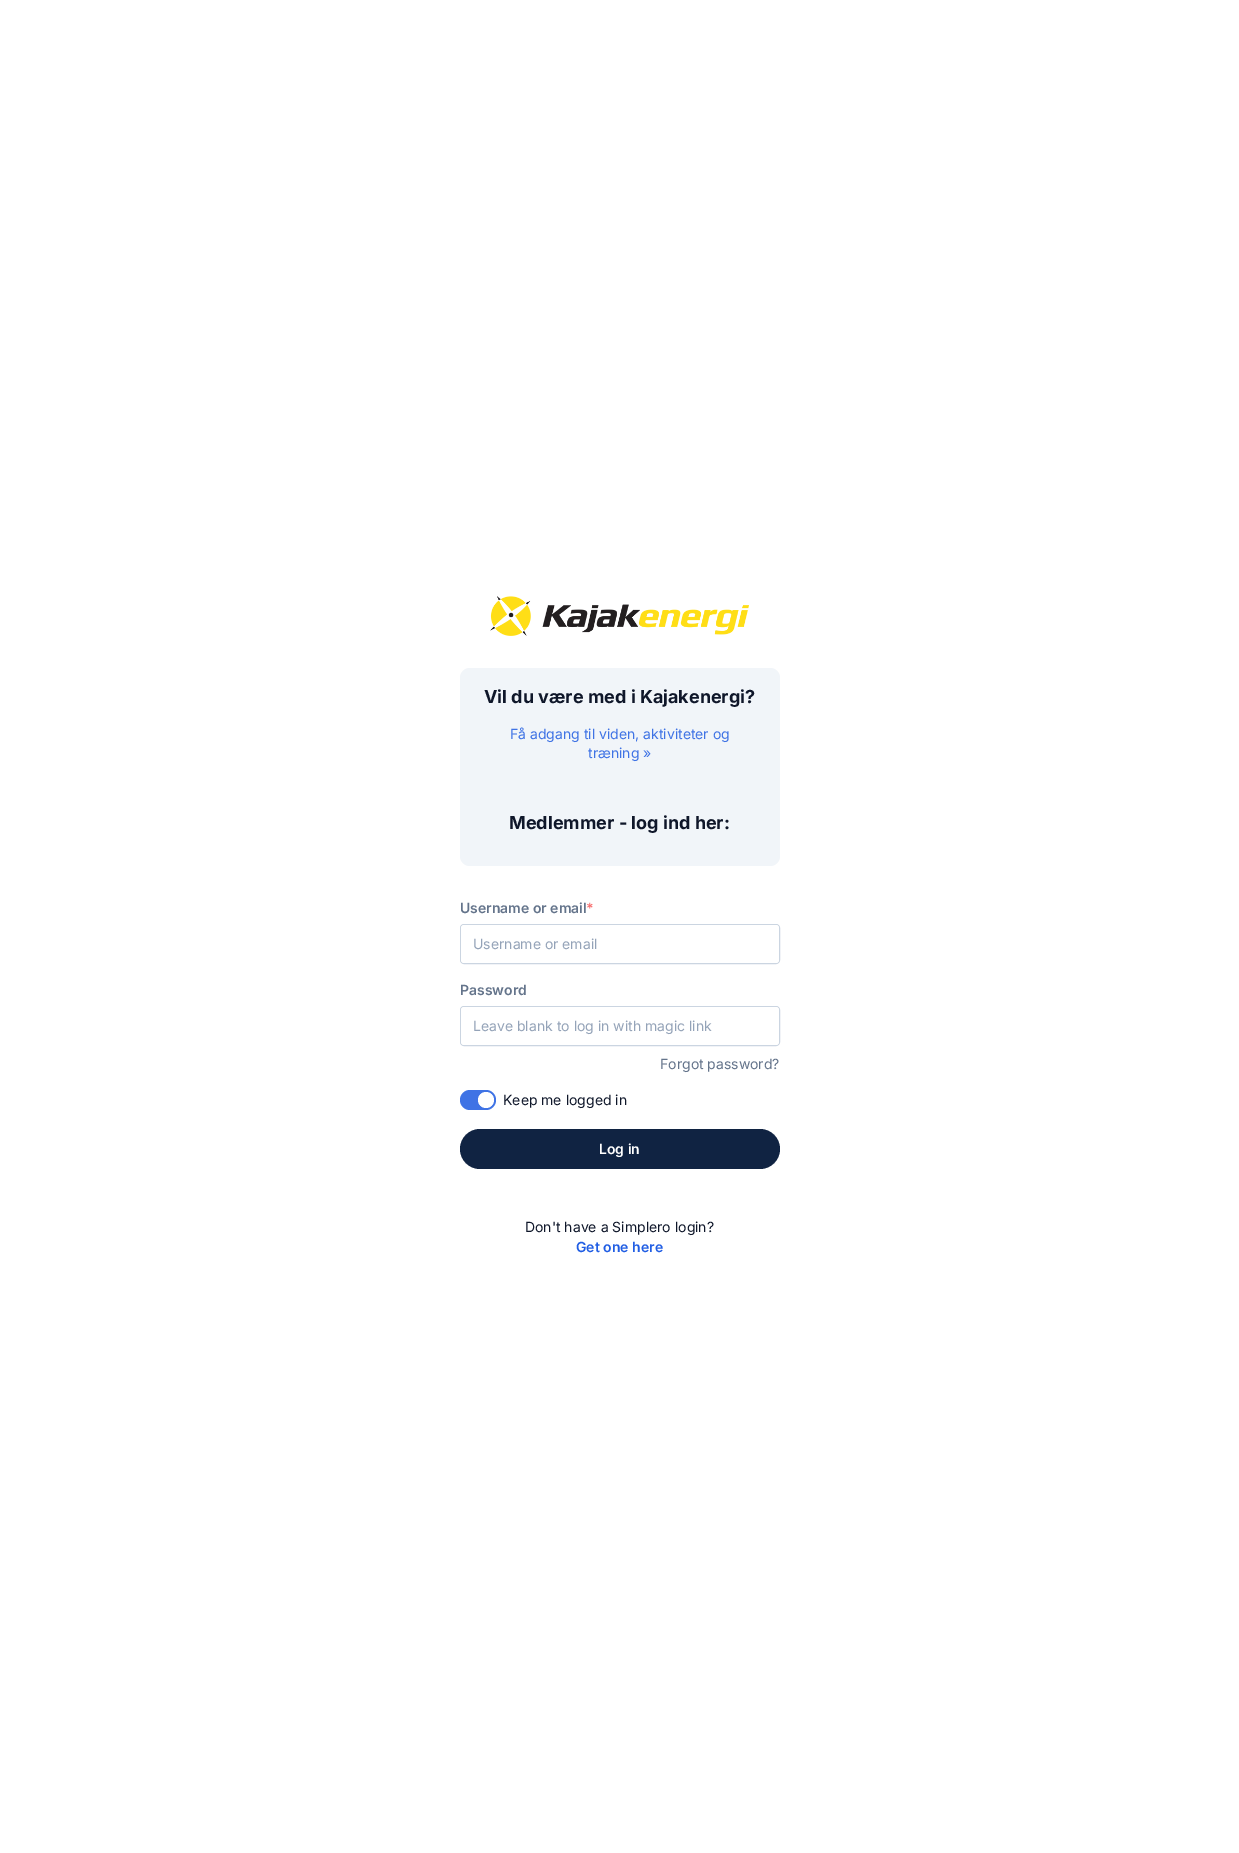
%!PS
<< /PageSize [1239 1853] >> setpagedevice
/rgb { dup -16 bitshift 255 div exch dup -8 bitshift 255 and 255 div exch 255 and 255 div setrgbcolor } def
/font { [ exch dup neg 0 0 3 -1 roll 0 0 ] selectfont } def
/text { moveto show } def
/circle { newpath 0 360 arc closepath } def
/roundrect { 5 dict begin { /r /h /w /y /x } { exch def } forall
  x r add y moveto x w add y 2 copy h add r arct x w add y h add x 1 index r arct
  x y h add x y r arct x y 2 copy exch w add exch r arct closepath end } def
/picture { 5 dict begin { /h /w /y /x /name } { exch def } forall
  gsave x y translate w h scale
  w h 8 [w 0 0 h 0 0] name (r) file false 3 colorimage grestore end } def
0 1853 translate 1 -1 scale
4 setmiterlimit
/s1 { /Inter-Bold 18 font 16#0F172A rgb } def
/s2 { /Inter-Regular 14 font 16#3F73E5 rgb } def
/s3 { /Inter-SemiBold 14 font 16#64748B rgb } def
/s4 { /Inter-SemiBold 14 font 16#F87171 rgb } def
/s5 { /Inter-Regular 14 font 16#94A3B8 rgb } def
/s6 { /Inter-Regular 14 font 16#64748B rgb } def
/s7 { /Inter-Regular 14 font 16#0F172A rgb } def
/s8 { /Inter-SemiBold 14 font 16#FFFFFF rgb } def
/s9 { /Inter-SemiBold 14 font 16#215EE4 rgb } def
16#FFFFFF rgb
0 0 1239 1853 rectfill
(pic1.raw) 490 596 259 40 picture
16#F1F5F9 rgb
460 668 320 198 10 roundrect fill
s1
(Vil du være med i Kajakenergi?) 484 703 text
s2
(Få adgang til viden, aktiviteter og) 510 739 text
(træning ») 588 758 text
s1
(Medlemmer - log ind her:) 509 829 text
s3
(Username or email) 460 913 text
s4
(*) 586 913 text
16#CBD5E1 rgb
460.5 924.5 319 39 3.5 roundrect stroke
16#FFFFFF rgb
461 925 318 38 3 roundrect fill
s5
(Username or email) 473 949 text
s3
(Password) 460 995 text
16#CBD5E1 rgb
460.5 1006.5 319 39 3.5 roundrect stroke
16#FFFFFF rgb
461 1007 318 38 3 roundrect fill
s5
(Leave blank to log in with magic link) 473 1031 text
s6
(Forgot password?) 660 1069 text
16#3F73E5 rgb
460 1090 36 20 10 roundrect fill
16#FFFFFF rgb
486 1100 8 circle fill
s7
(Keep me logged in) 503 1105 text
16#102342 rgb
460 1129 320 40 20 roundrect fill
s8
(Log in) 599 1154 text
s7
(Don't have a Simplero login?) 525 1232 text
s9
(Get one here) 576 1252 text
showpage
